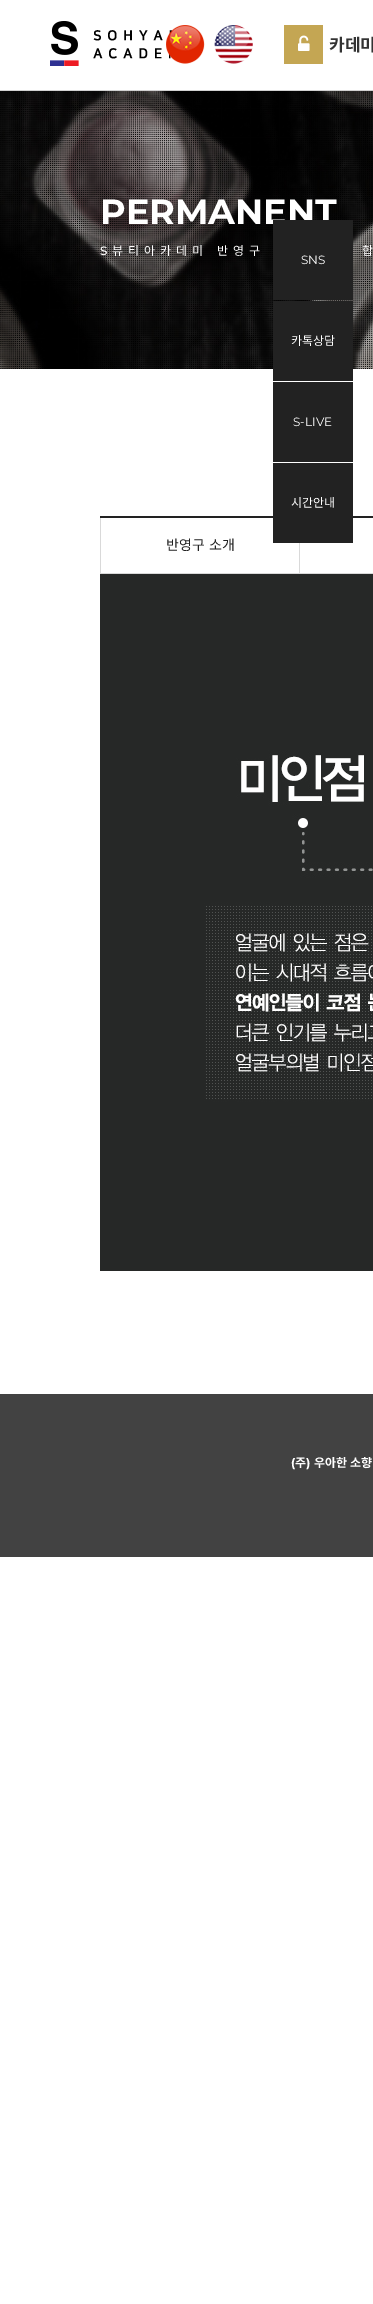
%!PS
<< /PageSize [373 2304] >> setpagedevice
/rgb { dup -16 bitshift 255 div exch dup -8 bitshift 255 and 255 div exch 255 and 255 div setrgbcolor } def
/font { [ exch dup neg 0 0 3 -1 roll 0 0 ] selectfont } def
/text { moveto show } def
/picture { 5 dict begin { /h /w /y /x /name } { exch def } forall
  gsave x y translate w h scale
  w h 8 [w 0 0 h 0 0] name (r) file false 3 colorimage grestore end } def
0 2304 translate 1 -1 scale
4 setmiterlimit
/s1 { /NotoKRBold-Bold 17 font 16#333333 rgb } def
/s2 { /Montserrat-Bold 35 font 16#FFFFFF rgb } def
/s3 { /Montserrat-Regular 12 font 16#FFFFFF rgb } def
/s4 { /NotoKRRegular-Regular 12 font 16#FFFFFF rgb } def
/s5 { /Montserrat-Bold 12 font 16#FFFFFF rgb } def
/s6 { /NotoKRBold-Bold 12 font 16#FFFFFF rgb } def
16#FFFFFF rgb
0 0 373 2304 rectfill
16#D1D1D1 rgb
0 90 373 1 rectfill
(pic1.raw) 50 21 122 45 picture
(pic2.raw) 166 25 39 39 picture
(pic3.raw) 214 25 39 39 picture
16#C4A653 rgb
284 25 39 39 rectfill
(pic4.raw) 298 35 12 16 picture
s1
(카데미) 329 51 text
(pic5.raw) 0 91 373 278 picture
s2
(PERMANENT) 100 224 text
/Montserrat-Medium 12 font
100 255 moveto 5 0 (S) ashow
/NotoKRRegular-Regular 12 font
112 255 moveto 1 0 32 5 0 (뷰티아카데미 반영구) awidthshow
362 255 moveto 1 0 32 5 0 (합) awidthshow
16#222222 rgb
100 516 273 2 rectfill
16#D9D9D9 rgb
299 543 1 31 rectfill
100 573 273 1 rectfill
100 518 1 56 rectfill
/NotoKRRegular-Regular 14 font
16#222222 rgb
166 550 moveto 1 0 32 (반영구 소개) widthshow
(pic6.raw) 100 574 273 697 picture
273 220 80 80 rectfill
s3
(SNS) 301 264 text
16#222222 rgb
273 301 80 80 rectfill
s4
(카톡상담) 291 345 text
16#222222 rgb
273 382 80 80 rectfill
s3
(S-LIVE) 293 426 text
16#222222 rgb
273 463 80 80 rectfill
s4
(시간안내) 291 507 text
16#424242 rgb
0 1394 373 163 rectfill
s5
(\() 291 1467 text
s6
(주) 295 1467 text
s5
(\)) 306 1467 text
s6
(우아한 소향) 314 1467 text
showpage
